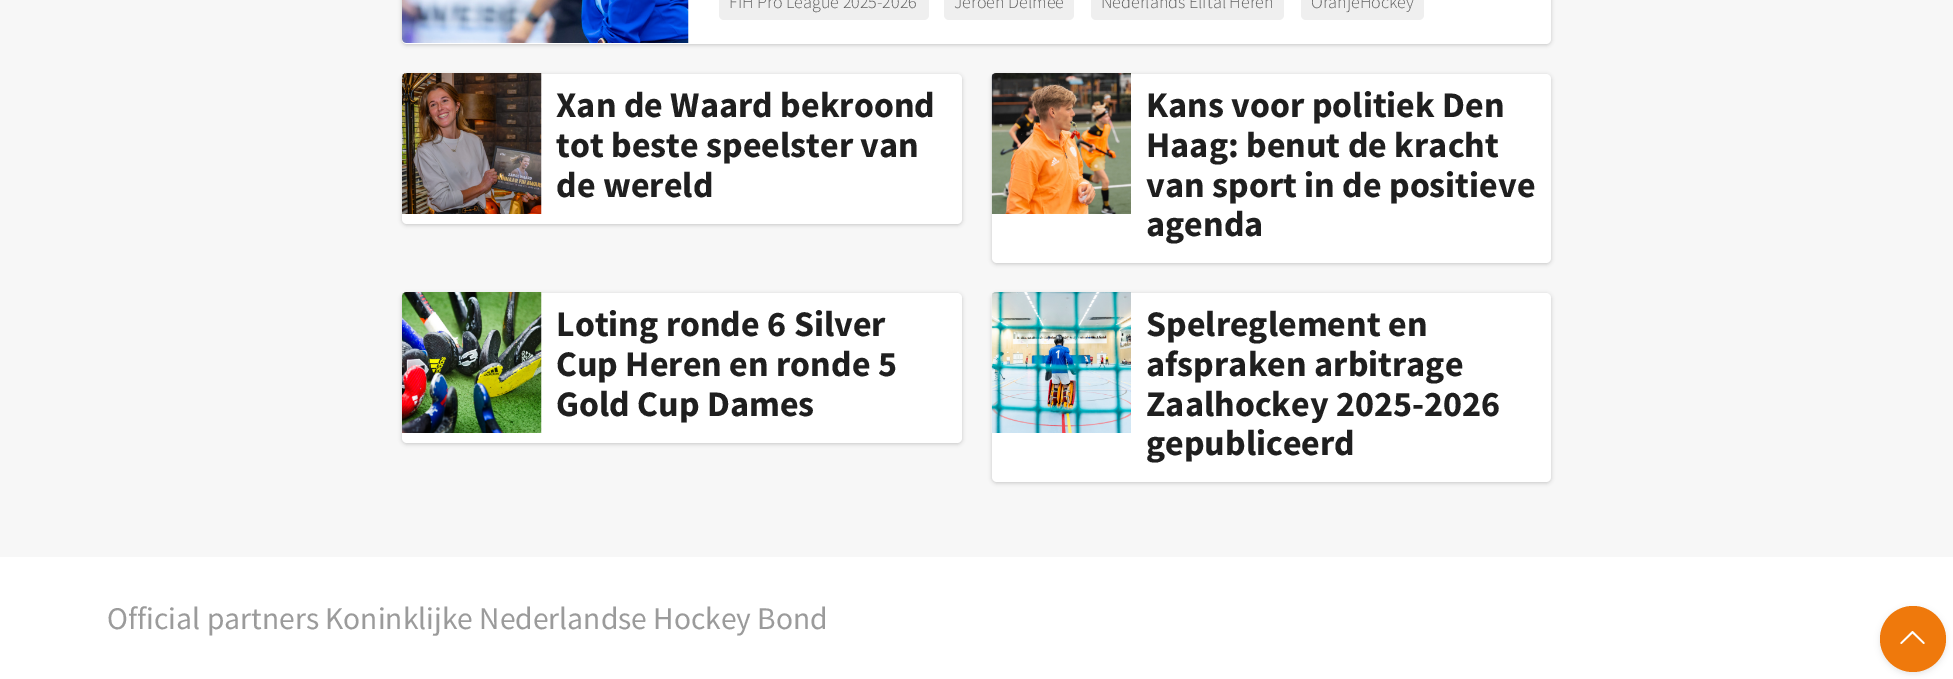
%!PS
<< /PageSize [1953 679] /PageUsesTransparency true >> setpagedevice
/rgb { dup -16 bitshift 255 div exch dup -8 bitshift 255 and 255 div exch 255 and 255 div setrgbcolor } def
/font { [ exch dup neg 0 0 3 -1 roll 0 0 ] selectfont } def
/text { moveto show } def
/alpha { dup .setfillconstantalpha .setstrokeconstantalpha } def
/circle { newpath 0 360 arc closepath } def
/roundrect { 5 dict begin { /r /h /w /y /x } { exch def } forall
  x r add y moveto x w add y 2 copy h add r arct x w add y h add x 1 index r arct
  x y h add x y r arct x y 2 copy exch w add exch r arct closepath end } def
/shadow { 12 dict begin { /a /b /q /h /w /y /x } { exch def } forall gsave /was 0 def
  9 -2 -9 { dup b mul 4 div /e exch def 1 sub .425 mul 2.718 exch exp 1 add a .99 .min exch div /now exch def
    1 1 now sub 1 was sub div sub alpha /was now def
    w h .min e 2 mul add 0 gt { x e sub y e sub w e 2 mul add h e 2 mul add
      q e add b .6 mul add w h .min 2 div e add .min 0 .max roundrect fill } if } for grestore end } def
/picture { 5 dict begin { /h /w /y /x /name } { exch def } forall
  gsave x y translate w h scale
  w h 8 [w 0 0 h 0 0] name (r) file false 3 colorimage grestore end } def
0 .pushpdf14devicefilter
0 679 translate 1 -1 scale
4 setmiterlimit
/s1 { /SourceSansPro-Light 18 font 16#5E5E5E rgb } def
/s2 { /SourceSansPro-Bold 36 font 16#1F1F1F rgb } def
/s3 { /SourceSansPro-Regular 31.5 font 16#9B9B9B rgb } def
16#F7F7F7 rgb
0 0 1953 679 rectfill
16#000000 rgb
402 -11 1149 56 5 2 0.2 shadow
16#FFFFFF rgb
402 -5 1149 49 5 roundrect fill
(pic1.raw) 402 0 287 43 picture
16#EFEFEF rgb
719 -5 210 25 5 roundrect fill
s1
(FIH Pro League 2025-2026) 729 8 text
16#EFEFEF rgb
944 -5 130 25 5 roundrect fill
s1
(Jeroen Delmee) 954 8 text
16#EFEFEF rgb
1091 -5 193 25 5 roundrect fill
s1
(Nederlands Elftal Heren) 1101 8 text
16#EFEFEF rgb
1301 -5 123 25 5 roundrect fill
s1
(OranjeHockey) 1311 8 text
16#000000 rgb
402 75 560 150 5 2 0.2 shadow
16#FFFFFF rgb
402 74 560 150 5 roundrect fill
(pic2.raw) 402 73 140 141 picture
s2
(Xan de Waard bekroond) 556 117 text
(tot beste speelster van) 556 157 text
(de wereld) 556 197 text
16#000000 rgb
992 75 559 189 5 2 0.2 shadow
16#FFFFFF rgb
992 74 559 189 5 roundrect fill
(pic3.raw) 991 73 140 141 picture
s2
(Kans voor politiek Den) 1146 117 text
(Haag: benut de kracht) 1146 157 text
(van sport in de positieve) 1146 197 text
(agenda) 1146 236 text
16#000000 rgb
402 294 560 150 5 2 0.2 shadow
16#FFFFFF rgb
402 293 560 150 5 roundrect fill
(pic4.raw) 402 292 140 141 picture
s2
(Loting ronde 6 Silver) 556 336 text
(Cup Heren en ronde 5) 556 376 text
(Gold Cup Dames) 556 416 text
16#000000 rgb
992 294 559 189 5 2 0.2 shadow
16#FFFFFF rgb
992 293 559 189 5 roundrect fill
(pic5.raw) 991 292 140 141 picture
s2
(Spelreglement en) 1146 336 text
(afspraken arbitrage) 1146 376 text
(Zaalhockey 2025-2026) 1146 416 text
(gepubliceerd) 1146 455 text
16#FFFFFF rgb
0 557 1953 122 rectfill
16#000000 rgb
1880 608 66 66 33 3 0.1 shadow
16#EF790C rgb
1913 639 33 circle fill
(pic6.raw) 1900 631 25 13 picture
s3
(Official partners Koninklijke Nederlandse Hockey Bond) 107 629 text
.poppdf14devicefilter showpage
